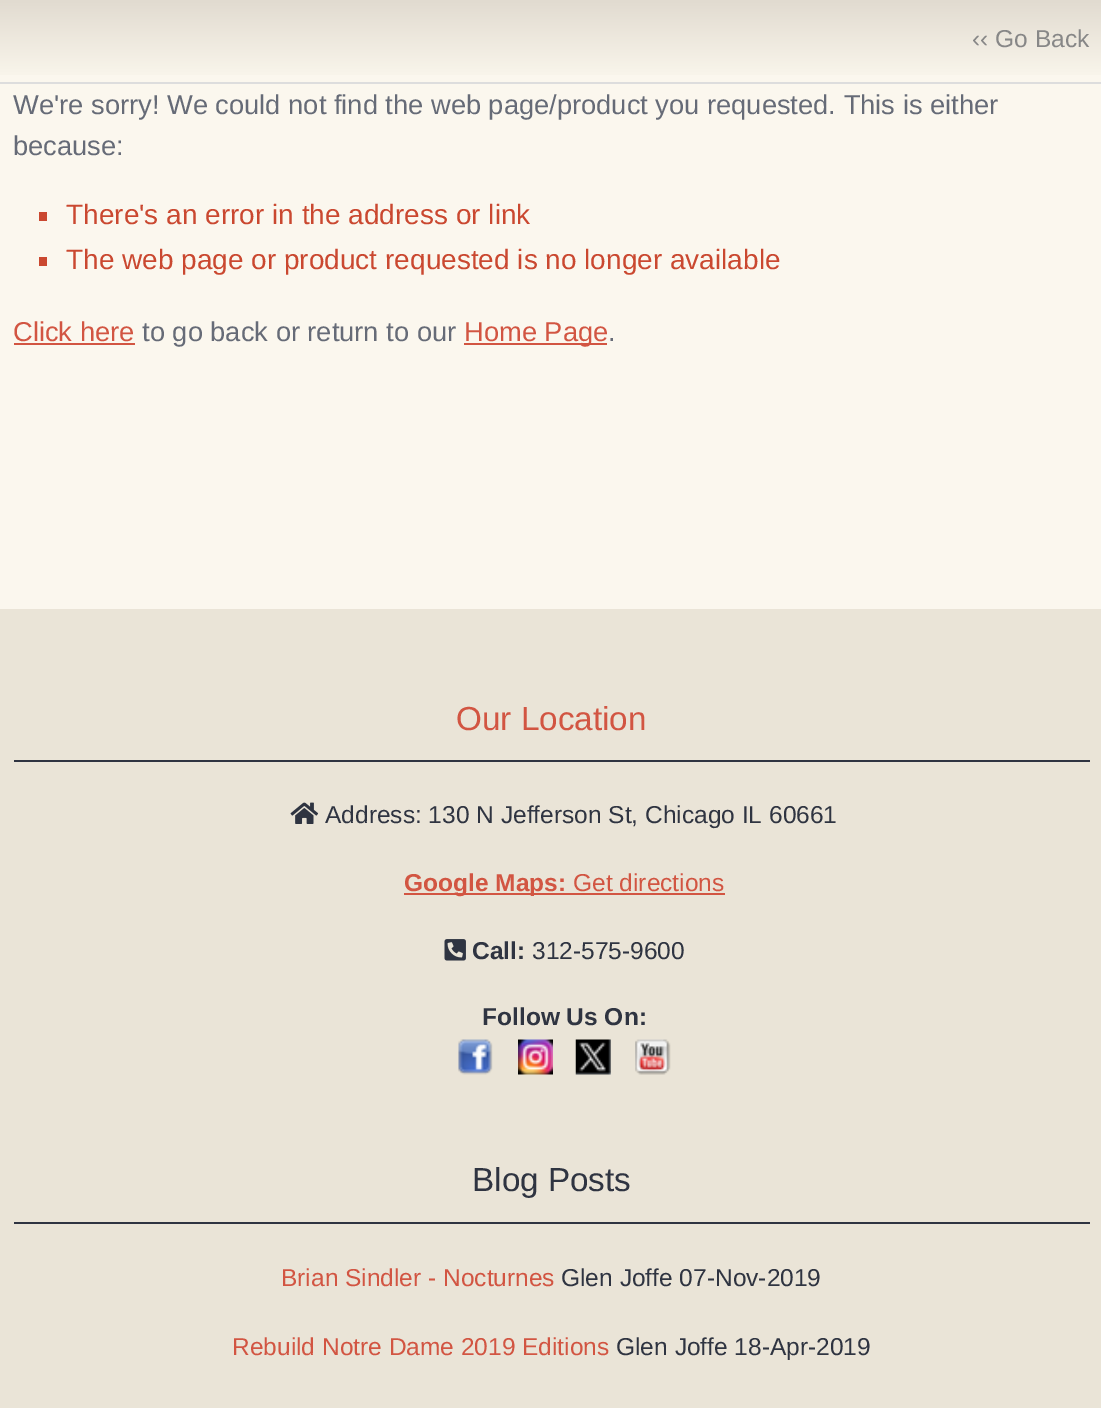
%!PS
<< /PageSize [1101 1408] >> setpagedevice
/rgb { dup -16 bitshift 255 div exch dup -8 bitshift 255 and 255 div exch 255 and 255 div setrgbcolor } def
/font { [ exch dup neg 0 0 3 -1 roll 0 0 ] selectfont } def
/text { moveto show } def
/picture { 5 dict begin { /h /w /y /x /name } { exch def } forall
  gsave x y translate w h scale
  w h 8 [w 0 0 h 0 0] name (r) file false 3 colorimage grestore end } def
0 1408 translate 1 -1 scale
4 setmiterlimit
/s1 { /LiberationSans-Regular 24.5 font 16#878787 rgb } def
/s2 { /LiberationSans-Regular 27.3 font 16#666B77 rgb } def
/s3 { /LiberationSans-Regular 28 font 16#CA4830 rgb } def
/s4 { /LiberationSans-Regular 27.3 font 16#D25542 rgb } def
/s5 { /LiberationSans-Regular 33.25 font 16#D25542 rgb } def
/s6 { /LiberationSans-Regular 24.5 font 16#2F3441 rgb } def
/s7 { /LiberationSans-Bold 24.5 font 16#D25542 rgb } def
/s8 { /LiberationSans-Regular 24.5 font 16#D25542 rgb } def
/s9 { /LiberationSans-Bold 24.5 font 16#2F3441 rgb } def
/s10 { /LiberationSans-Regular 33.25 font 16#2F3441 rgb } def
16#FBF7EE rgb
0 0 1101 1408 rectfill
gsave 0 0 moveto 1101 0 lineto 1101 75 lineto 0 75 lineto closepath clip newpath
<< /ShadingType 2 /ColorSpace /DeviceRGB /Coords [551 82 551 -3.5] /Extend [true true] /Function << /FunctionType 2 /Domain [0 1] /C0 [0.984 0.969 0.933] /C1 [0.878 0.855 0.812] /N 1 >> >> shfill grestore
16#DDDDDD rgb
0 82 1101 2 rectfill
s1
(‹‹ Go Back) 972 47 text
s2
(We're sorry! We could not find the web page/product you requested. This is either) 13 114 text
(because:) 13 155 text
16#CA4830 rgb
39 212 8 9 rectfill
s3
(There's an error in the address or link) 66 224 text
39 257 8 9 rectfill
(The web page or product requested is no longer available) 66 269 text
s4
(Click here) 13 341 text
14 343 121 2 rectfill
s2
(to go back or return to our) 142 341 text
16#D25542 rgb
464 343 143 2 rectfill
(Home Page) 464 341 text
s2
(.) 608 341 text
16#EAE4D7 rgb
0 609 1101 799 rectfill
16#2F3441 rgb
14 760 1076 2 rectfill
s5
(Our Location) 456 730 text
(pic1.raw) 290 802 29 22 picture
s6
(Address: 130 N Jefferson St, Chicago IL 60661) 325 823 text
16#D25542 rgb
404 893 321 2 rectfill
s7
(Google Maps:) 404 891 text
s8
(Get directions) 573 891 text
(pic2.raw) 444 939 22 22 picture
s9
(Call:) 472 959 text
s6
(312-575-9600) 532 959 text
s9
(Follow Us On:) 482 1025 text
(pic3.raw) 458 1039 35 36 picture
(pic4.raw) 518 1039 35 36 picture
(pic5.raw) 575 1039 36 36 picture
(pic6.raw) 635 1039 36 36 picture
14 1222 1076 2 rectfill
s10
(Blog Posts) 472 1191 text
s8
(Brian Sindler - Nocturnes) 281 1286 text
s6
(Glen Joffe 07-Nov-2019) 561 1286 text
s8
(Rebuild Notre Dame 2019 Editions) 232 1355 text
s6
(Glen Joffe 18-Apr-2019) 616 1355 text
showpage
